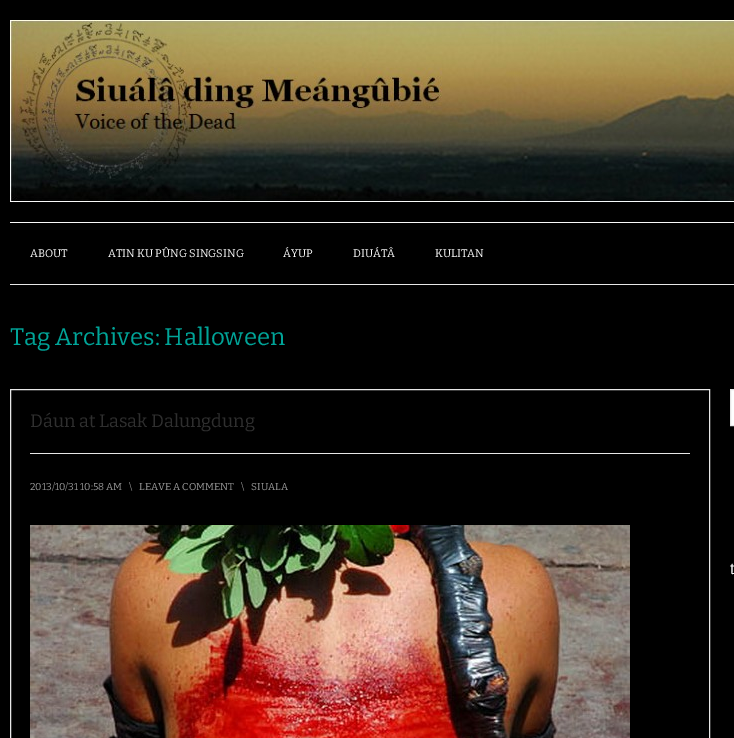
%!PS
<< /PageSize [734 738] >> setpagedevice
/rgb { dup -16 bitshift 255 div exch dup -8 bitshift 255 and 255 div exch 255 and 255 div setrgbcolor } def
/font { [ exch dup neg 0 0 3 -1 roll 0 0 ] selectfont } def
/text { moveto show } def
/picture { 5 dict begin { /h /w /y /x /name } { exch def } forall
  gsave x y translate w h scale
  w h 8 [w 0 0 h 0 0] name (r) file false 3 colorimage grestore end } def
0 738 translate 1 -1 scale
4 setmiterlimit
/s1 { /Bitter-Thin 11 font 16#F9F9F9 rgb } def
/s2 { /Bitter-Thin 24 font 16#00A498 rgb } def
/s3 { /Bitter-Thin 18 font 16#2F2F2F rgb } def
/s4 { /Bitter-Thin 10 font 16#999999 rgb } def
/s5 { /LiberationSans-Regular 16 font 16#F9F9F9 rgb } def
16#000000 rgb
0 0 734 738 rectfill
(pic1.raw) 10 20 724 182 picture
16#F9F9F9 rgb
10 222 724 1 rectfill
16#E7E7E7 rgb
10 284 724 1 rectfill
s1
(ABOUT) 30 257 text
(ATIN KU PÛNG SINGSING) 108 257 text
(ÁYUP) 283 257 text
(DIUÁTÂ) 353 257 text
(KULITAN) 435 257 text
s2
(Tag Archives: Halloween) 10 345 text
16#E7E7E7 rgb
10.5 389.5 699 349 rectstroke
30 453 660 1 rectfill
s3
(Dáun at Lasak Dalungdung) 30 427 text
s4
(2013/10/31 10:58 AM) 30 490 text
(\\) 129 490 text
(LEAVE A COMMENT) 139 490 text
(\\) 241 490 text
(SIUALA) 251 490 text
(pic2.raw) 30 525 600 213 picture
16#FFFFFF rgb
730.5 389.5 moveto 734.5 389.5 lineto 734.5 425.5 lineto 730.5 425.5 lineto closepath gsave fill grestore
16#E7E7E7 rgb
stroke
s5
(t) 730 574 text
showpage
